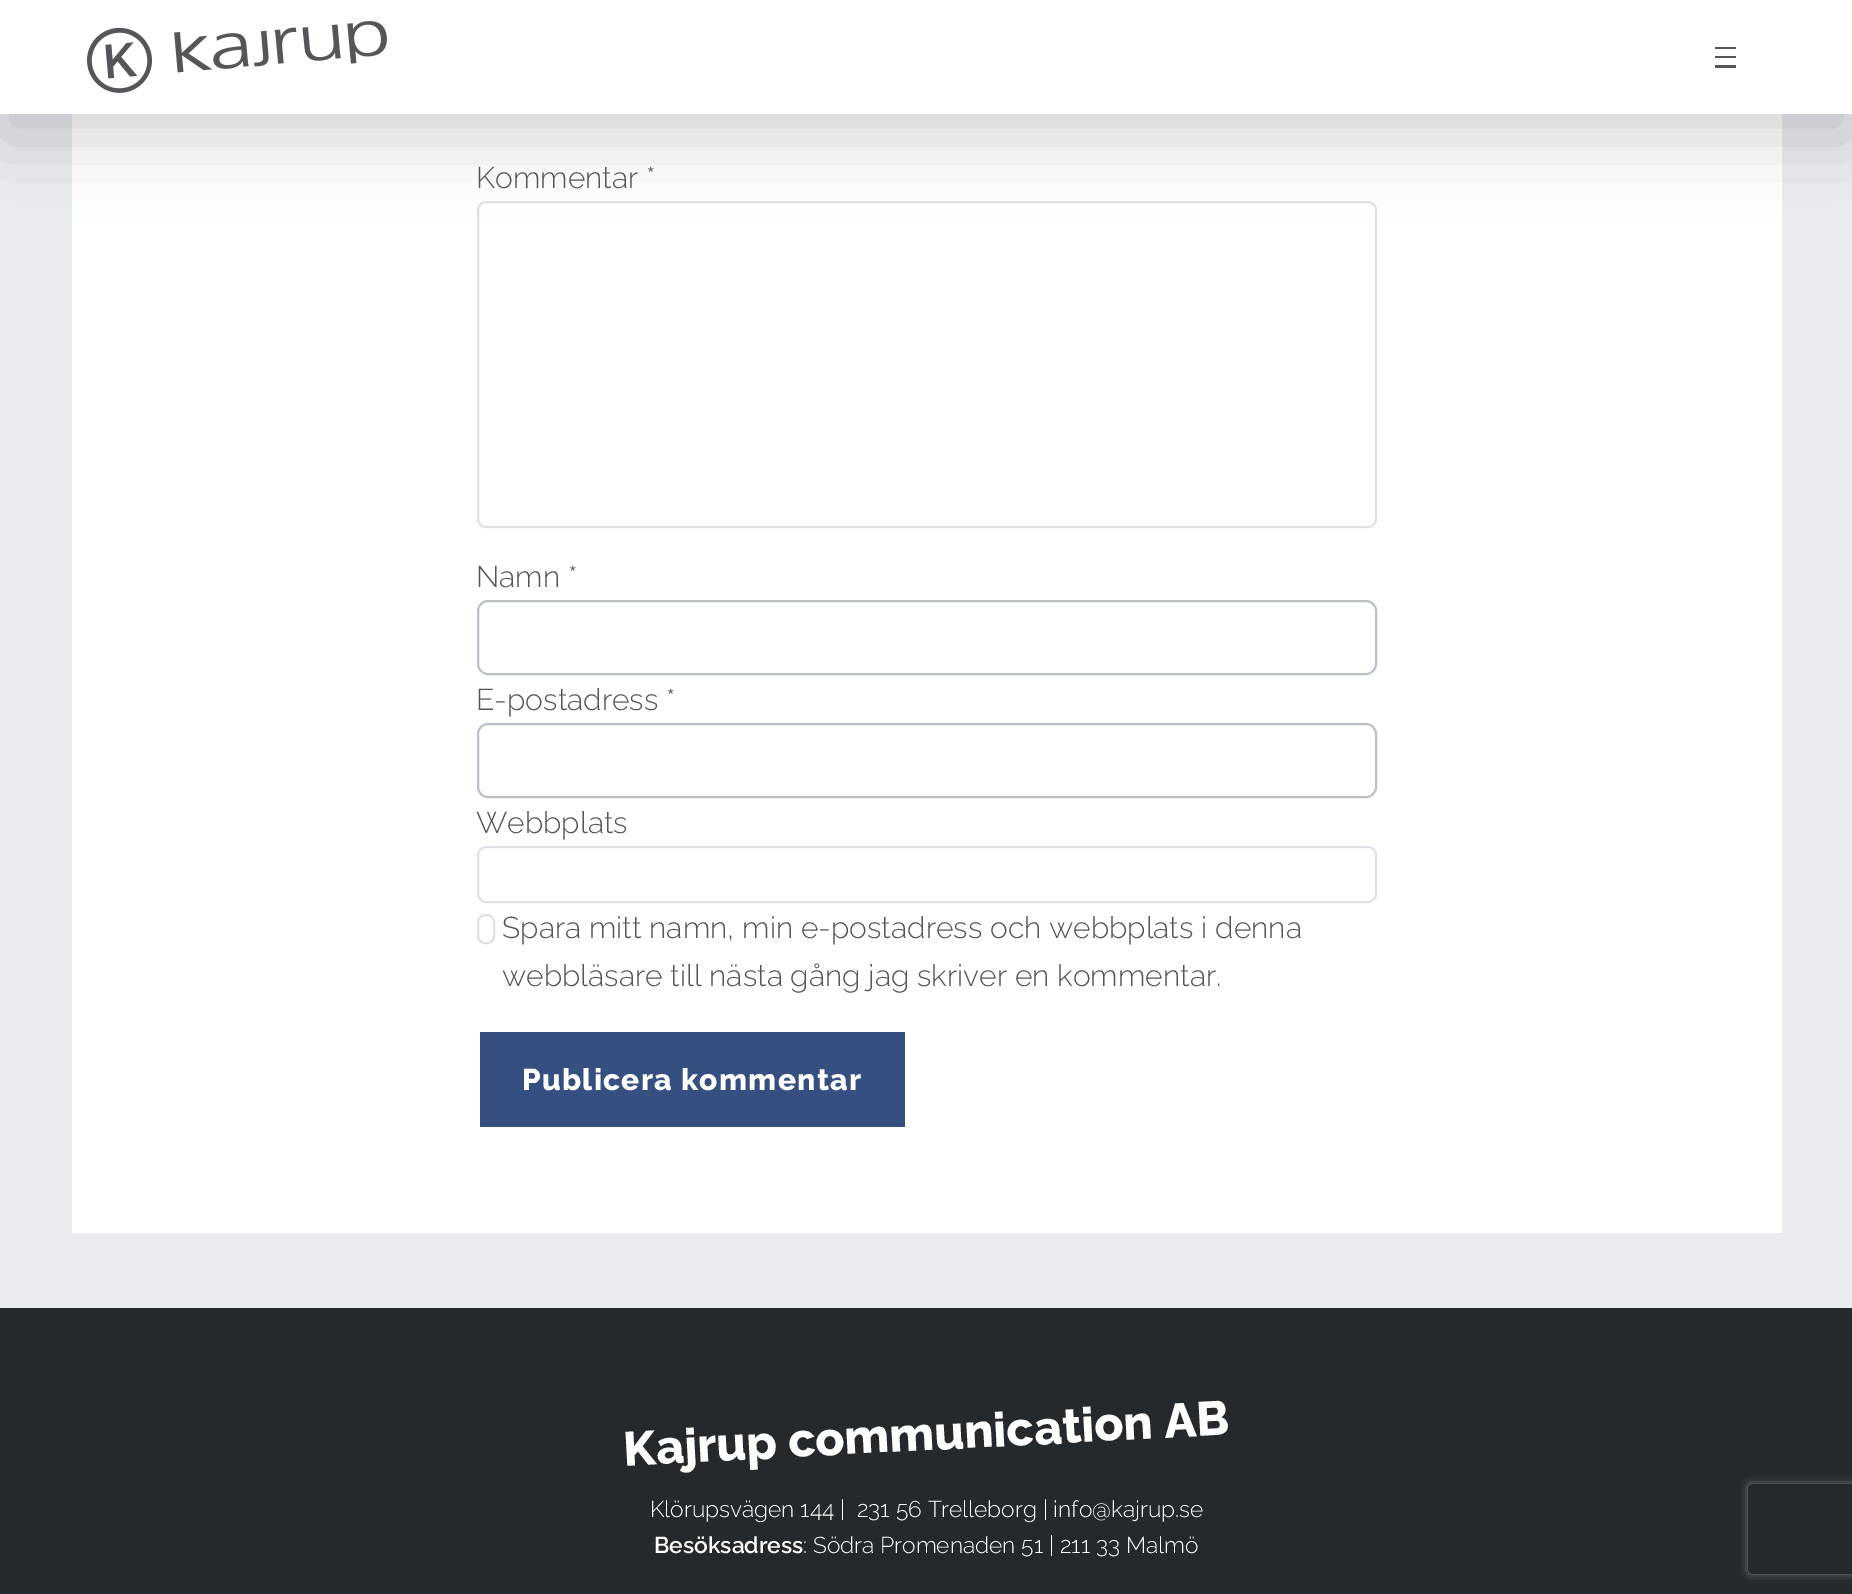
%!PS
<< /PageSize [1852 1594] /PageUsesTransparency true >> setpagedevice
/rgb { dup -16 bitshift 255 div exch dup -8 bitshift 255 and 255 div exch 255 and 255 div setrgbcolor } def
/font { [ exch dup neg 0 0 3 -1 roll 0 0 ] selectfont } def
/text { moveto show } def
/alpha { dup .setfillconstantalpha .setstrokeconstantalpha } def
/roundrect { 5 dict begin { /r /h /w /y /x } { exch def } forall
  x r add y moveto x w add y 2 copy h add r arct x w add y h add x 1 index r arct
  x y h add x y r arct x y 2 copy exch w add exch r arct closepath end } def
/shadow { 12 dict begin { /a /b /q /h /w /y /x } { exch def } forall gsave /was 0 def
  9 -2 -9 { dup b mul 4 div /e exch def 1 sub .425 mul 2.718 exch exp 1 add a .99 .min exch div /now exch def
    1 1 now sub 1 was sub div sub alpha /was now def
    w h .min e 2 mul add 0 gt { x e sub y e sub w e 2 mul add h e 2 mul add
      q e add b .6 mul add w h .min 2 div e add .min 0 .max roundrect fill } if } for grestore end } def
/picture { 5 dict begin { /h /w /y /x /name } { exch def } forall
  gsave x y translate w h scale
  w h 8 [w 0 0 h 0 0] name (r) file false 3 colorimage grestore end } def
0 .pushpdf14devicefilter
0 1594 translate 1 -1 scale
4 setmiterlimit
/s1 { /Raleway-Light 30 font 16#50565B rgb } def
/s2 { /Raleway-Light 22.8 font 16#FFFFFF rgb } def
/s3 { /Raleway-SemiBold 22.8 font 16#FFFFFF rgb } def
16#E9EDF2 rgb
0 0 1852 1594 rectfill
16#FFFFFF rgb
72 114 1710 1119 rectfill
16#DEE2E6 rgb
2 setlinewidth
478 202 898 325 8 roundrect stroke
16#000000 rgb
0 24 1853 114 0 36 0.18 shadow
16#FFFFFF rgb
0 0 1852 114 rectfill
(pic1.raw) 87 21 300 72 picture
16#50565B rgb
1715 47 21 2 rectfill
1715 56 21 2 rectfill
1715 65 21 3 rectfill
s1
(Kommentar *) 476 188 text
(Namn *) 476 587 text
16#B9C1C6 rgb
478 601 898 73 10 roundrect stroke
s1
(E-postadress *) 476 710 text
16#B9C1C6 rgb
478 724 898 73 10 roundrect stroke
s1
(Webbplats) 476 833 text
16#DEE2E6 rgb
478 847 898 55 8 roundrect stroke
478 915 16 28 7 roundrect stroke
s1
(Spara mitt namn, min e-postadress och webbplats i denna) 502 938 text
(webbläsare till nästa gång jag skriver en kommentar.) 502 986 text
16#364F81 rgb
480 1032 425 95 rectfill
/Raleway-ExtraBold 30 font
16#FFFFFF rgb
522 1090 moveto 1.25 0 (Publicera kommentar) ashow
16#24292D rgb
0 1308 1852 286 rectfill
/Raleway-ExtraBold 48 font
16#FFFFFF rgb
gsave 624 1466 translate -3 rotate 0 0 moveto (Kajrup communication AB) show grestore
s2
(Klörupsvägen 144 |  231 56 Trelleborg | info@kajrup.se) 650 1517 text
s3
(Besöksadress) 654 1553 text
s2
(: Södra Promenaden 51 | 211 33 Malmö) 803 1553 text
gsave
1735 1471 moveto 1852 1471 lineto 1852 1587 lineto 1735 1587 lineto closepath 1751 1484 moveto 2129 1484 lineto 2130.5 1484 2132 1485.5 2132 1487 curveto 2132 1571 lineto 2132 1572.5 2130.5 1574 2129 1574 curveto 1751 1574 lineto 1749.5 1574 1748 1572.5 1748 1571 curveto 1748 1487 lineto 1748 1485.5 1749.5 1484 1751 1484 curveto closepath eoclip newpath
16#808080 rgb
1748 1484 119 90 3 4 1 shadow
grestore
.poppdf14devicefilter showpage
